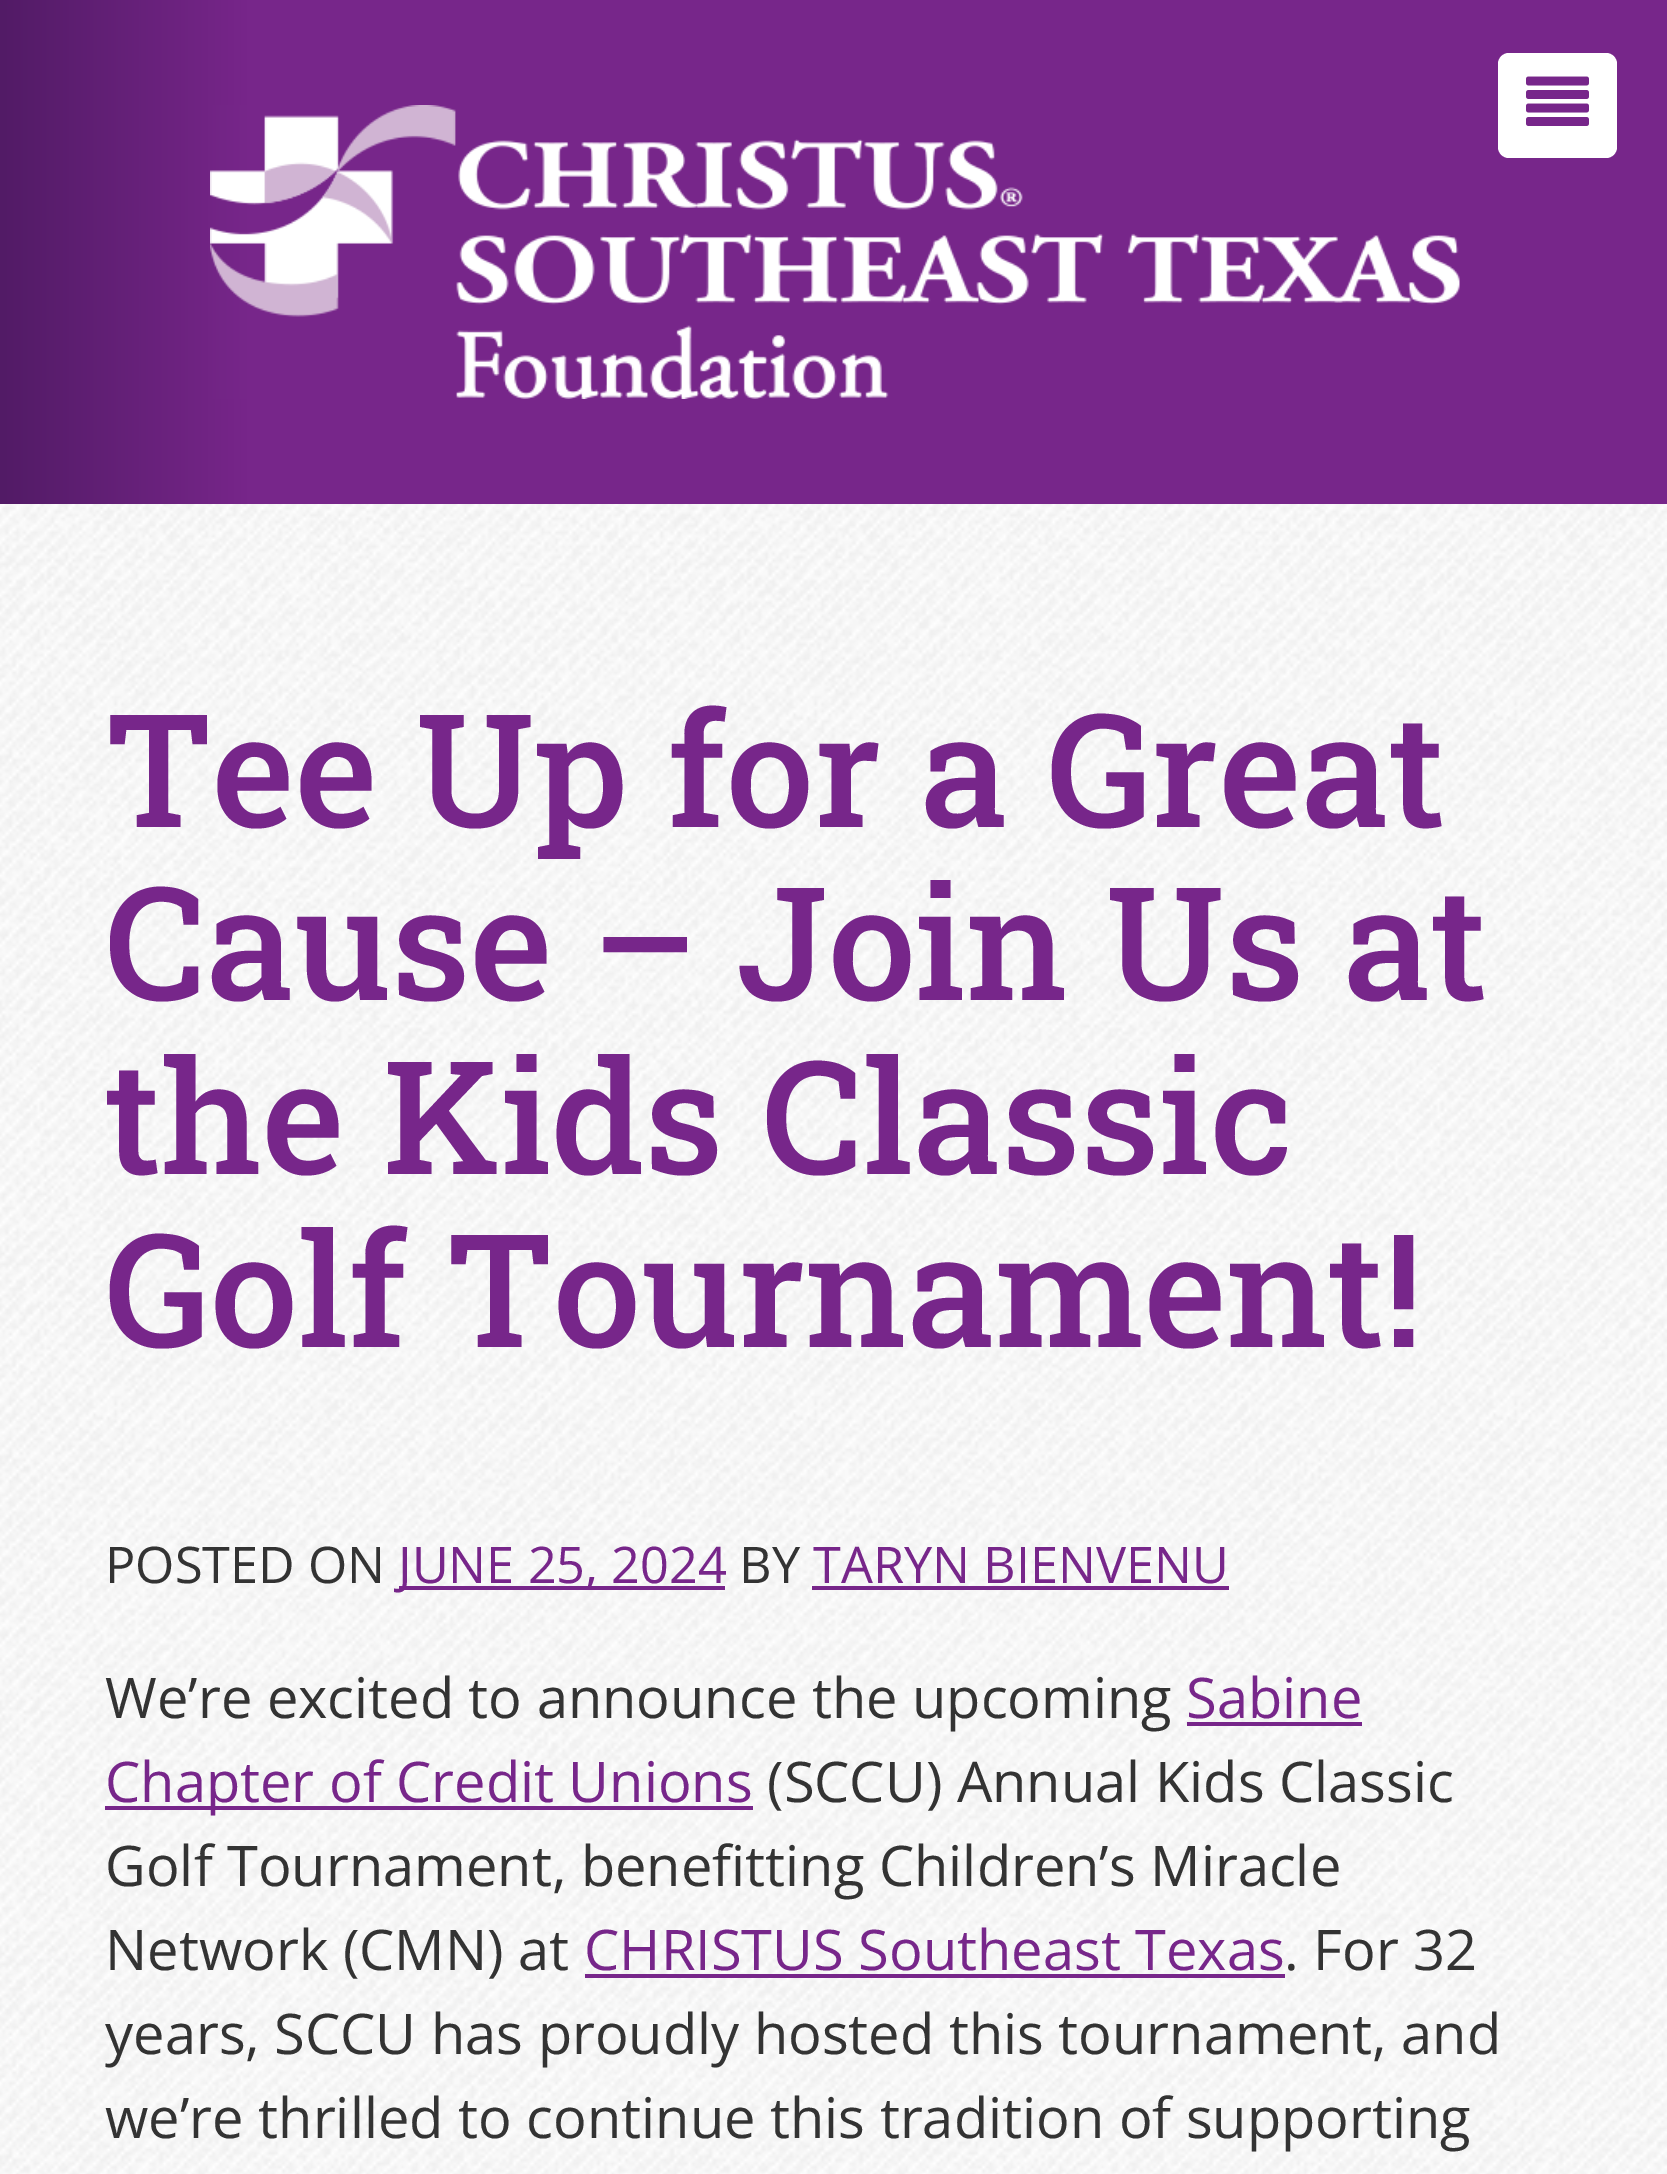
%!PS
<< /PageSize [1667 2174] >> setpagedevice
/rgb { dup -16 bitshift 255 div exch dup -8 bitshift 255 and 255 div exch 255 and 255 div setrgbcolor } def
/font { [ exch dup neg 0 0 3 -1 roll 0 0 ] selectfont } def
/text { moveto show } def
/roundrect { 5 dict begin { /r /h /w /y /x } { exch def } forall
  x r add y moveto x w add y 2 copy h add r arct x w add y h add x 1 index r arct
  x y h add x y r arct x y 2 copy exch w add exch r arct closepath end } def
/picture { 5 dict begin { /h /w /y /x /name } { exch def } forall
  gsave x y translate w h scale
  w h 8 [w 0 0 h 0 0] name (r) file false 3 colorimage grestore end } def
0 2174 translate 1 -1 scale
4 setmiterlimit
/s1 { /RobotoSlab-Medium 157.5 font 16#77268A rgb } def
/s2 { /OpenSans-Regular 50.5 font 16#333333 rgb } def
/s3 { /OpenSans-Regular 50.5 font 16#77268A rgb } def
/s4 { /OpenSans-Regular 56 font 16#333333 rgb } def
/s5 { /OpenSans-Regular 56 font 16#77268A rgb } def
16#FFFFFF rgb
0 0 1667 2174 rectfill
gsave 0 0 moveto 1667 0 lineto 1667 504 lineto 0 504 lineto closepath clip newpath
<< /ShadingType 2 /ColorSpace /DeviceRGB /Coords [0 252 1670 252] /Extend [true true] /Function << /FunctionType 3 /Domain [0 1] /Functions [<< /FunctionType 2 /Domain [0 1] /C0 [0.322 0.106 0.4] /C1 [0.467 0.149 0.541] /N 1 >> << /FunctionType 2 /Domain [0 1] /C0 [0.467 0.149 0.541] /C1 [0.467 0.149 0.541] /N 1 >>] /Bounds [0.15] /Encode [0 1 0 1] >> >> shfill grestore
(pic1.raw) 210 105 1250 294 picture
1498 53 119 105 11 roundrect fill
(pic2.raw) 1526 76 63 50 picture
(pic3.raw) 0 504 1667 1670 picture
s1
(Tee Up for a Great) 105 827 text
(Cause – Join Us at) 105 1000 text
(the Kids Classic) 105 1174 text
(Golf Tournament!) 105 1347 text
s2
(POSTED ON) 105 1583 text
16#77268A rgb
399 1586 326 4 rectfill
(JUNE 25, 2024) 398 1583 text
s2
(BY) 739 1583 text
s3
(TARYN BIENVENU) 813 1583 text
812 1586 417 4 rectfill
s4
(We’re excited to announce the upcoming) 105 1718 text
s5
(Sabine) 1186 1718 text
1187 1722 175 4 rectfill
105 1806 648 4 rectfill
(Chapter of Credit Unions) 105 1802 text
s4
(\(SCCU\) Annual Kids Classic) 767 1802 text
(Golf Tournament, benefitting Children’s Miracle) 105 1886 text
(Network \(CMN\) at) 105 1970 text
s5
(CHRISTUS Southeast Texas) 584 1970 text
585 1974 700 4 rectfill
s4
(. For 32) 1284 1970 text
(years, SCCU has proudly hosted this tournament, and) 105 2054 text
(we’re thrilled to continue this tradition of supporting) 105 2138 text
showpage
